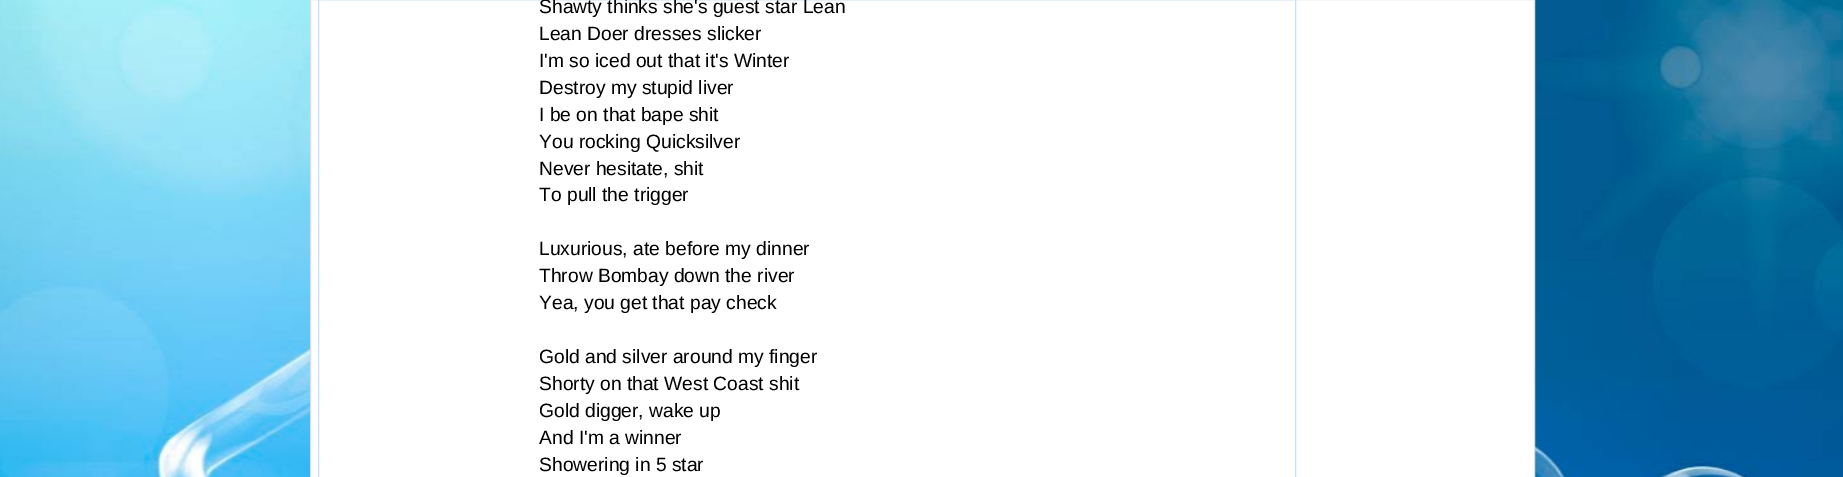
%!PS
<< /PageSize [1843 477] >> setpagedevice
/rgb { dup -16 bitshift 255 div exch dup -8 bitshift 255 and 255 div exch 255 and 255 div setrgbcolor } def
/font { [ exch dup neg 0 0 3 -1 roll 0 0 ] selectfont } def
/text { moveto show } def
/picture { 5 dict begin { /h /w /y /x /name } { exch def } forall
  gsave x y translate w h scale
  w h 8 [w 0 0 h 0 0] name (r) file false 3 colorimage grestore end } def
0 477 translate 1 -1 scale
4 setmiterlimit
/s1 { /LiberationSans-Regular 19.25 font 16#000000 rgb } def
16#FFFFFF rgb
0 0 1843 477 rectfill
(pic1.raw) 0 0 1843 477 picture
310.5 -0.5 moveto 1534.5 -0.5 lineto 1534.5 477.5 lineto 310.5 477.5 lineto closepath gsave fill grestore
16#DDDDDD rgb
stroke
16#C0E2FF rgb
318.5 -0.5 977 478 rectstroke
s1
(Shawty thinks she's guest star Lean) 539 13 text
(Lean Doer dresses slicker) 539 40 text
(I'm so iced out that it's Winter) 539 67 text
(Destroy my stupid liver) 539 94 text
(I be on that bape shit) 539 121 text
(You rocking Quicksilver) 539 148 text
(Never hesitate, shit) 539 175 text
(To pull the trigger) 539 201 text
(Luxurious, ate before my dinner) 539 255 text
(Throw Bombay down the river) 539 282 text
(Yea, you get that pay check) 539 309 text
(Gold and silver around my finger) 539 363 text
(Shorty on that West Coast shit) 539 390 text
(Gold digger, wake up) 539 417 text
(And I'm a winner) 539 444 text
(Showering in 5 star) 539 471 text
showpage
